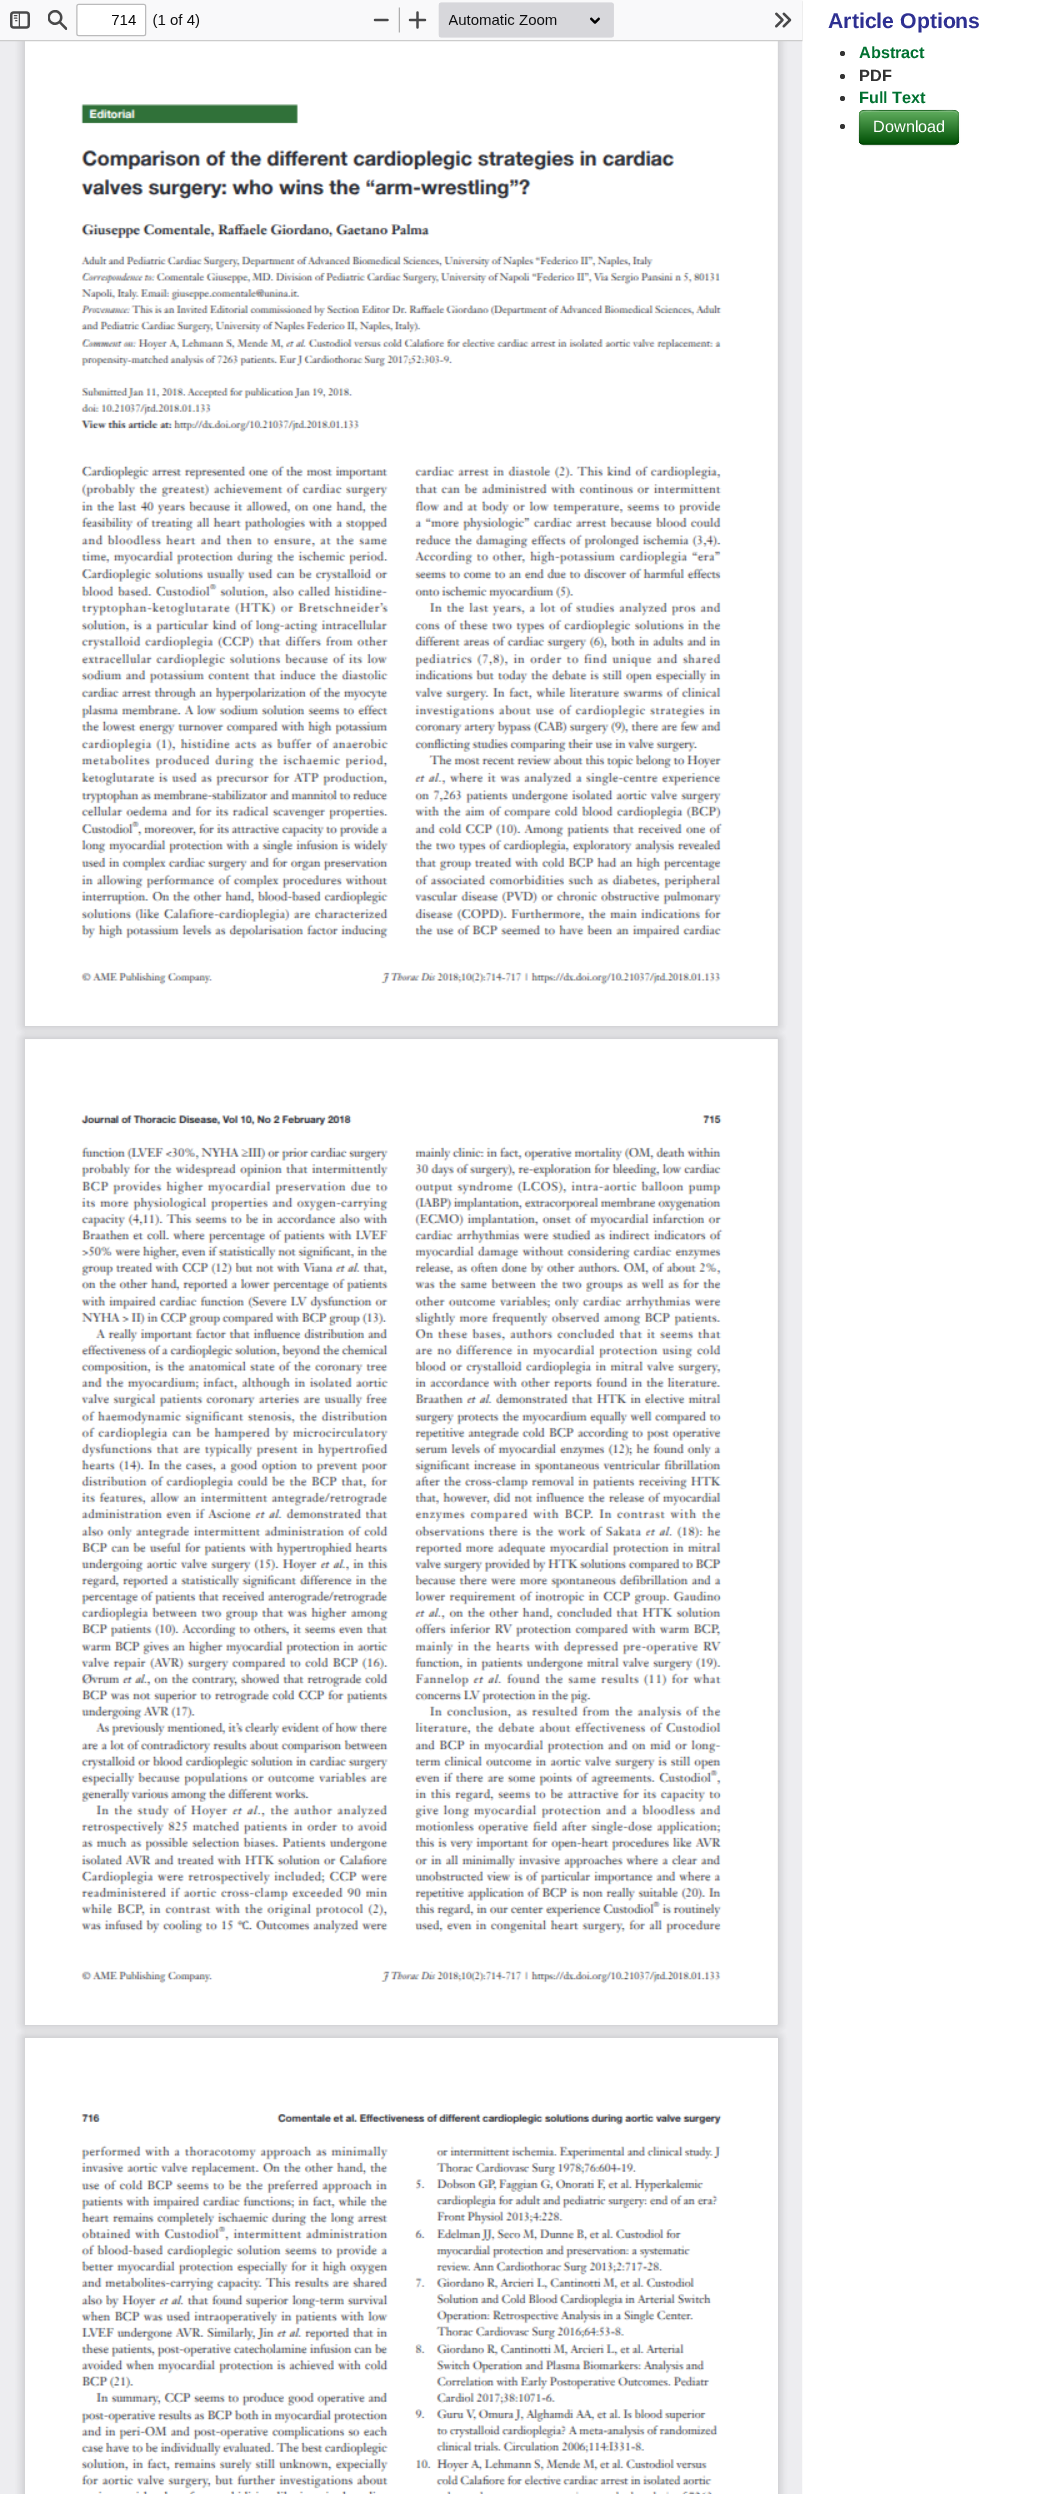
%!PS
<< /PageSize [1052 2494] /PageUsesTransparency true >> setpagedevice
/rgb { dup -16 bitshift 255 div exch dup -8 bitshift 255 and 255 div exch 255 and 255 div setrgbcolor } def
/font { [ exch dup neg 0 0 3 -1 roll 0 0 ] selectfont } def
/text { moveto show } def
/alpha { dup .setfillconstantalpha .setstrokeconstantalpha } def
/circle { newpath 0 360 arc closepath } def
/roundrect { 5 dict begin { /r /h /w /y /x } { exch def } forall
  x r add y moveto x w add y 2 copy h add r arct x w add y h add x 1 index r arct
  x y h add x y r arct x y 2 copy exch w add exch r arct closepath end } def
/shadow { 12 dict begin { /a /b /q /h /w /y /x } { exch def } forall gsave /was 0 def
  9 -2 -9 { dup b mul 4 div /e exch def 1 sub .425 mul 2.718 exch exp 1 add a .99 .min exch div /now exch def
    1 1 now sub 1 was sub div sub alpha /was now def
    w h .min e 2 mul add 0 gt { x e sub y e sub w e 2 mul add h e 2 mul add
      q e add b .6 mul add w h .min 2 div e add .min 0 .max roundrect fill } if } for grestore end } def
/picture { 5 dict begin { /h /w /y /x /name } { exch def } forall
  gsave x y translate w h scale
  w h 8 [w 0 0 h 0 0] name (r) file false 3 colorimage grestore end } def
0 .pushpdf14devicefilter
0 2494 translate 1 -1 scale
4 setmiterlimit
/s1 { /LiberationSans-Bold 21.25 font 16#2E3092 rgb } def
/s2 { /LiberationSans-Bold 16.25 font 16#007130 rgb } def
/s3 { /LiberationSans-Bold 16.25 font 16#333333 rgb } def
/s4 { /LiberationSans-Regular 16.25 font 16#FFFFFF rgb } def
16#FFFFFF rgb
0 0 1052 2494 rectfill
(pic1.raw) 0 0 803 2494 picture
s1
(Article Options) 828 28 text
16#333333 rgb
842.5 53.5 2.5 circle fill
s2
(Abstract) 859 58 text
16#333333 rgb
842.5 76.5 2.5 circle fill
(PDF) 859 81 text
842.5 98.5 2.5 circle fill
s2
(Full Text) 859 103 text
16#333333 rgb
842.5 126.5 2.5 circle fill
16#000000 rgb
859 111 100 35 5 1 0.05 shadow
16#2E7D32 rgb
859 110 100 35 5 roundrect fill
gsave
859 110 100 35 5 roundrect clip newpath
gsave 859 111 moveto 959 111 lineto 959 144 lineto 859 144 lineto closepath clip newpath
<< /ShadingType 2 /ColorSpace /DeviceRGB /Coords [909 111 909 144] /Extend [true true] /Function << /FunctionType 2 /Domain [0 1] /C0 [0.376 0.678 0.369] /C1 [0 0.314 0.02] /N 1 >> >> shfill grestore
grestore
0.2 alpha
16#FFFFFF rgb
864 112 moveto 954 112 lineto 956 112 958 114 958 116 curveto 958 107 943 111 939 111 curveto 879 111 lineto 875 111 860 107 860 116 curveto 860 114 862 112 864 112 curveto closepath fill
0.25 alpha
16#000000 rgb
1.2 setlinewidth
957 143 moveto 956 144 955 144.5 954 144.5 curveto 864 144.5 lineto 862.5 144.5 861.5 144 860.5 143 curveto stroke
0.1 alpha
860.5 143 moveto 858 140.5 859.5 130.5 859.5 127.5 curveto 859.5 107.5 857 110.5 879 110.5 curveto 939 110.5 lineto 962.5 110.5 958 108 958 131.5 curveto 958 135 959.5 140.5 957 143 curveto stroke
1 alpha
s4
(Download) 873 132 text
.poppdf14devicefilter showpage
